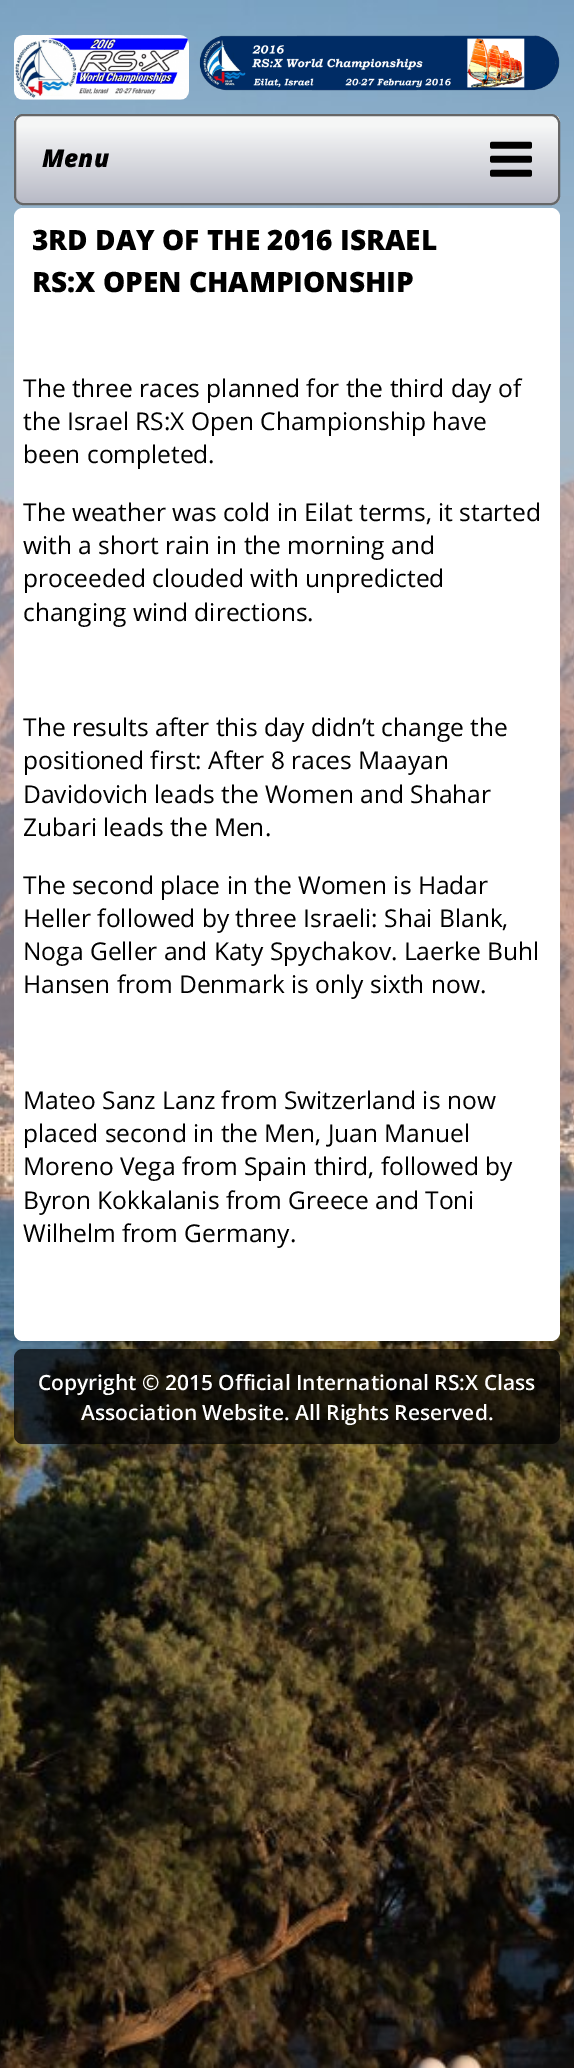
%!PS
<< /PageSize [574 2068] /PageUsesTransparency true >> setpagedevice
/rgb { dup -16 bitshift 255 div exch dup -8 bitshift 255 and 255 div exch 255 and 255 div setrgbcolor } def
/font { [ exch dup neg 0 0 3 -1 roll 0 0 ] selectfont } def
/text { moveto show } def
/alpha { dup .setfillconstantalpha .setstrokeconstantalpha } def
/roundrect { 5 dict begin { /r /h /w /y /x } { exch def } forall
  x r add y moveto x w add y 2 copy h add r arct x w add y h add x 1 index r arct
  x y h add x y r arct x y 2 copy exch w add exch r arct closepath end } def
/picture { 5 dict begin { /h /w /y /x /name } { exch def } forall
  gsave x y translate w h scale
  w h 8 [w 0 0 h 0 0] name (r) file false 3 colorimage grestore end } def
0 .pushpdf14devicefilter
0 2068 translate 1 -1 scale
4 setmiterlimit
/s1 { /OpenSans-ExtraBoldItalic 24.5 font 16#000000 rgb } def
/s2 { /OpenSans-ExtraBold 28 font 16#000000 rgb } def
/s3 { /OpenSans-Regular 24.5 font 16#000000 rgb } def
/s4 { /OpenSans-SemiBold 21 font 16#FFFFFF rgb } def
16#FFFFFF rgb
0 0 574 2068 rectfill
(pic1.raw) 0 0 574 2068 picture
(pic2.raw) 14 35 175 65 picture
(pic3.raw) 199 35 361 56 picture
gsave
14 114 546 91 9 roundrect clip newpath
gsave 14 116 moveto 560 116 lineto 560 203 lineto 14 203 lineto closepath clip newpath
<< /ShadingType 2 /ColorSpace /DeviceRGB /Coords [287 115 287 203] /Extend [true true] /Function << /FunctionType 3 /Domain [0 1] /Functions [<< /FunctionType 2 /Domain [0 1] /C0 [0.961 0.965 0.965] /C1 [0.961 0.965 0.965] /N 1 >> << /FunctionType 2 /Domain [0 1] /C0 [0.961 0.965 0.965] /C1 [0.722 0.729 0.776] /N 1 >>] /Bounds [0.13] /Encode [0 1 0 1] >> >> shfill grestore
grestore
16#666666 rgb
2 setlinewidth
15 115 544 89 8 roundrect stroke
s1
(Menu) 42 167 text
(pic4.raw) 490 141 42 36 picture
16#FFFFFF rgb
14 208 546 1133 9 roundrect fill
s2
(3RD DAY OF THE 2016 ISRAEL) 32 250 text
(RS:X OPEN CHAMPIONSHIP) 32 292 text
s3
(The three races planned for the third day of) 23 397 text
(the Israel RS:X Open Championship have) 23 430 text
(been completed.) 23 463 text
(The weather was cold in Eilat terms, it started) 23 521 text
(with a short rain in the morning and) 23 554 text
(proceeded clouded with unpredicted) 23 587 text
(changing wind directions.) 23 621 text
(The results after this day didn’t change the) 23 736 text
(positioned first: After 8 races Maayan) 23 769 text
(Davidovich leads the Women and Shahar) 23 803 text
(Zubari leads the Men.) 23 836 text
(The second place in the Women is Hadar) 23 894 text
(Heller followed by three Israeli: Shai Blank,) 23 927 text
(Noga Geller and Katy Spychakov. Laerke Buhl) 23 960 text
(Hansen from Denmark is only sixth now.) 23 993 text
(Mateo Sanz Lanz from Switzerland is now) 23 1109 text
(placed second in the Men, Juan Manuel) 23 1142 text
(Moreno Vega from Spain third, followed by) 23 1175 text
(Byron Kokkalanis from Greece and Toni) 23 1209 text
(Wilhelm from Germany.) 23 1242 text
0.7 alpha
14 1349 546 95 9 roundrect fill
1 alpha
s4
(Copyright © 2015 Official International RS:X Class) 38 1390 text
(Association Website. All Rights Reserved.) 81 1420 text
.poppdf14devicefilter showpage
